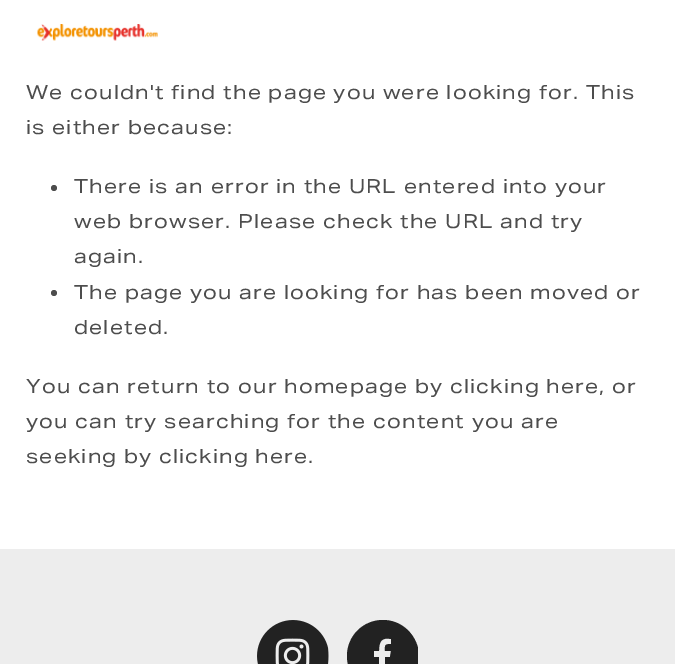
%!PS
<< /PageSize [675 664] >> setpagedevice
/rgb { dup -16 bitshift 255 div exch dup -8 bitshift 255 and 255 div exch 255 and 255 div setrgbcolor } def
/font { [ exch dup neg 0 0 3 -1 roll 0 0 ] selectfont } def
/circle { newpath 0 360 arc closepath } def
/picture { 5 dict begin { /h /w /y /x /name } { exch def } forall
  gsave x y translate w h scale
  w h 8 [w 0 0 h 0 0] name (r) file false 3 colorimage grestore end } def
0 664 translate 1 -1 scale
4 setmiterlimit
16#EDEDED rgb
0 0 675 664 rectfill
16#FFFFFF rgb
0 0 675 549 rectfill
(pic1.raw) 37 24 121 17 picture
/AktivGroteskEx-Regular 19.5 font
16#4D4D4D rgb
26 99 moveto 1.17 0 (We couldn't find the page you were looking for. This) ashow
26 134 moveto 1.17 0 (is either because:) ashow
54 188 3 circle fill
74 193 moveto 1.17 0 (There is an error in the URL entered into your) ashow
74 228 moveto 1.17 0 (web browser. Please check the URL and try) ashow
74 263 moveto 1.17 0 (again.) ashow
54 293 3 circle fill
74 299 moveto 1.17 0 (The page you are looking for has been moved or) ashow
74 334 moveto 1.17 0 (deleted.) ashow
26 393 moveto 1.17 0 (You can return to our homepage by clicking here, or) ashow
26 428 moveto 1.17 0 (you can try searching for the content you are) ashow
26 463 moveto 1.17 0 (seeking by clicking here.) ashow
(pic2.raw) 257 620 72 44 picture
16#222222 rgb
383 620 moveto 363 620 347 636 347 656 curveto 347 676 363 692 383 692 curveto 400 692 414 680 418 664 curveto 418 648 lineto 414 632 400 620 383 620 curveto closepath 391 644 moveto 391 639 lineto 381 637 379 642 379 651 curveto 374 651 lineto 374 657 lineto 379 657 lineto 379 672 lineto 385 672 lineto 385 657 lineto 390 657 lineto 391 651 lineto 385 651 lineto 385 646 384 644 391 644 curveto closepath eofill
showpage
